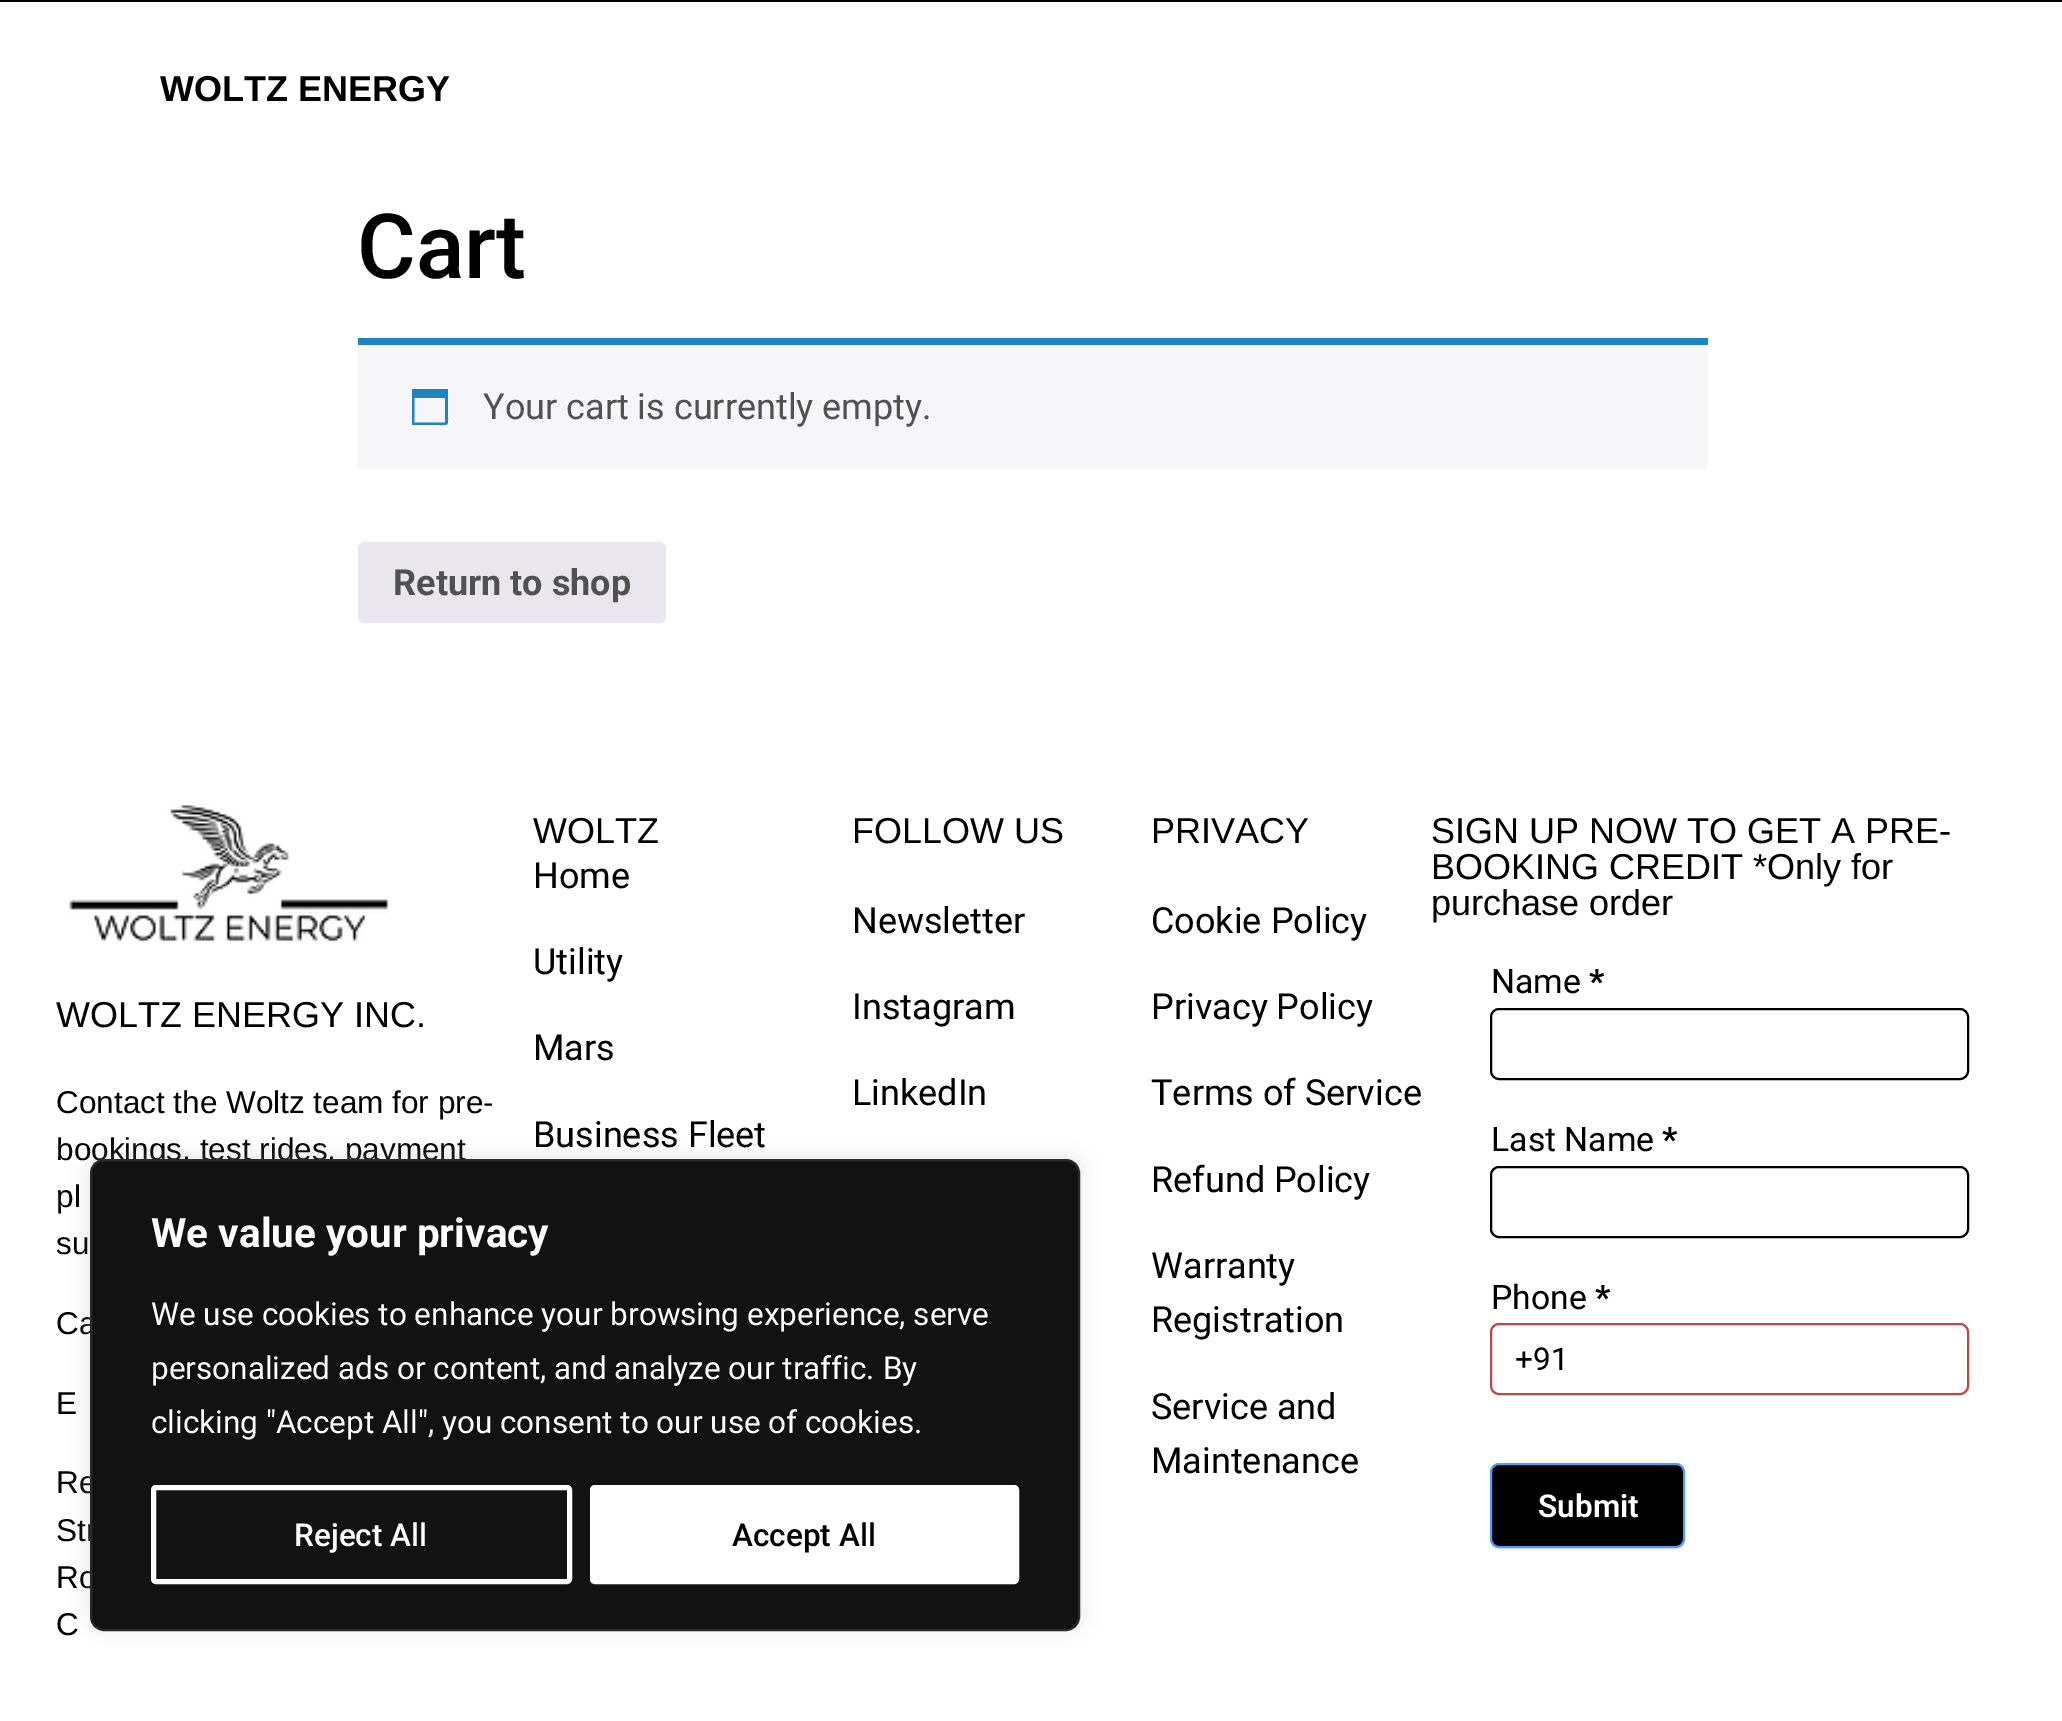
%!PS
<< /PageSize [2062 1721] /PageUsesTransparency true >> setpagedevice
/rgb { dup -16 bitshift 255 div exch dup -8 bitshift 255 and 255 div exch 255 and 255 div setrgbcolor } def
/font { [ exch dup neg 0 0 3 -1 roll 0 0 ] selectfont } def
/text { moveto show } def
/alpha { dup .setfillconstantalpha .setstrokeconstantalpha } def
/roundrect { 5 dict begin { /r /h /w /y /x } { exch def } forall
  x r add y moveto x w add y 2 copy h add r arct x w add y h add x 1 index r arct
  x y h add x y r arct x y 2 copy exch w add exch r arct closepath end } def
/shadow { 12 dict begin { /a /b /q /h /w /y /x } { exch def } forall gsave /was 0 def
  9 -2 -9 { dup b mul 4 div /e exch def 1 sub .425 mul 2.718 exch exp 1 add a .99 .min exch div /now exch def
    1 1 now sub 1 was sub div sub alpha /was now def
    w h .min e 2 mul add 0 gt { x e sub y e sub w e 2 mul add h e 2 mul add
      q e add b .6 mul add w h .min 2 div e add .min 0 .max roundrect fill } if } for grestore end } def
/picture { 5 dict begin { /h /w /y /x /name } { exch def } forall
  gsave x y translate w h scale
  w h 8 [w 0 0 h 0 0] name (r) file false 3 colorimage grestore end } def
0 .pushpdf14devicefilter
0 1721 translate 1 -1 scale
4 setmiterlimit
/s1 { /LiberationSans-Bold 36 font 16#000000 rgb } def
/s2 { /Roboto-Medium 90 font 16#000000 rgb } def
/s3 { /Roboto-Regular 36 font 16#515151 rgb } def
/s4 { /Roboto-Bold 36 font 16#515151 rgb } def
/s5 { /LiberationSans-Regular 36 font 16#000000 rgb } def
/s6 { /LiberationSans-Regular 31.5 font 16#000000 rgb } def
/s7 { /Roboto-Regular 36 font 16#000000 rgb } def
/s8 { /Roboto-Regular 33.75 font 16#000000 rgb } def
/s9 { /Roboto-Bold 33.75 font 16#000000 rgb } def
/s10 { /Roboto-Regular 31.5 font 16#000000 rgb } def
/s11 { /Roboto-SemiBold 31.5 font 16#FFFFFF rgb } def
/s12 { /Roboto-Bold 40.5 font 16#FFFFFF rgb } def
/s13 { /Roboto-Regular 31.5 font 16#FFFFFF rgb } def
/s14 { /Roboto-Medium 31.5 font 16#FFFFFF rgb } def
/s15 { /Roboto-Medium 31.5 font 16#000000 rgb } def
16#FFFFFF rgb
0 0 2062 1721 rectfill
16#000000 rgb
0 0 2062 2 rectfill
s1
(WOLTZ ENERGY) 160 101 text
s2
(Cart) 357 278 text
16#F6F5F8 rgb
358 345 1350 125 rectfill
16#1E85BE rgb
358 338 1350 7 rectfill
445 398 moveto 414.5 398 lineto 414.5 422.5 lineto 445 422.5 lineto closepath 448 389 moveto 448 417 lineto 448 425.5 448.5 425 439.5 425 curveto 412 425 lineto 412 389 lineto closepath fill
s3
(Your cart is currently empty.) 483 419 text
16#E9E6ED rgb
358 542 308 81 7 roundrect fill
s4
(Return to shop) 393 595 text
(pic1.raw) 69 804 321 138 picture
s5
(WOLTZ ENERGY INC.) 56 1027 text
s6
(Contact the Woltz team for pre-) 56 1113 text
(bookings, test rides, payment) 56 1160 text
(pl) 56 1207 text
(su) 56 1254 text
(Ca) 56 1334 text
(E) 56 1414 text
(Re) 56 1493 text
(Str) 56 1541 text
(Ro) 56 1588 text
(C) 56 1635 text
s5
(WOLTZ) 533 843 text
s7
(Home) 533 888 text
(Utility) 533 974 text
(Mars) 533 1060 text
(Business Fleet) 533 1147 text
s5
(FOLLOW US) 852 843 text
s7
(Newsletter) 852 933 text
(Instagram) 852 1019 text
(LinkedIn) 852 1105 text
s5
(PRIVACY) 1151 843 text
s7
(Cookie Policy) 1151 933 text
(Privacy Policy) 1151 1019 text
(Terms of Service) 1151 1105 text
(Refund Policy) 1151 1192 text
(Warranty) 1151 1278 text
(Registration) 1151 1332 text
(Service and) 1151 1419 text
(Maintenance) 1151 1473 text
s5
(SIGN UP NOW TO GET A PRE-) 1431 843 text
(BOOKING CREDIT *Only for) 1431 879 text
(purchase order) 1431 915 text
s8
(Name) 1491 993 text
s9
(*) 1589 993 text
2 setlinewidth
1491 1009 477 70 8 roundrect stroke
s8
(Last Name) 1491 1151 text
s9
(*) 1662 1151 text
1491 1167 477 70 8 roundrect stroke
s8
(Phone) 1491 1309 text
s9
(*) 1595 1309 text
16#B94A48 rgb
1491 1324 477 70 8 roundrect stroke
s10
(+91) 1515 1370 text
16#EEEEEE rgb
1490 1465 195 85 9 1 1 shadow
16#000000 rgb
1491 1464 193 83 8 roundrect gsave fill grestore
16#579AF6 rgb
stroke
s11
(Submit) 1538 1517 text
16#ACABAB rgb
90 1157 990 472 14 11 0.3 shadow
16#121212 rgb
91 1160 988 470 13 roundrect gsave fill grestore
16#2A2A2A rgb
stroke
s12
(We value your privacy) 151 1247 text
s13
(We use cookies to enhance your browsing experience, serve) 151 1325 text
(personalized ads or content, and analyze our traffic. By) 151 1379 text
(clicking "Accept All", you consent to our use of cookies.) 151 1433 text
5 setlinewidth
153.5 1487.5 416 94 2.5 roundrect stroke
s14
(Reject All) 294 1546 text
592.5 1487.5 424 94 2.5 roundrect gsave fill grestore
stroke
s15
(Accept All) 732 1546 text
.poppdf14devicefilter showpage
